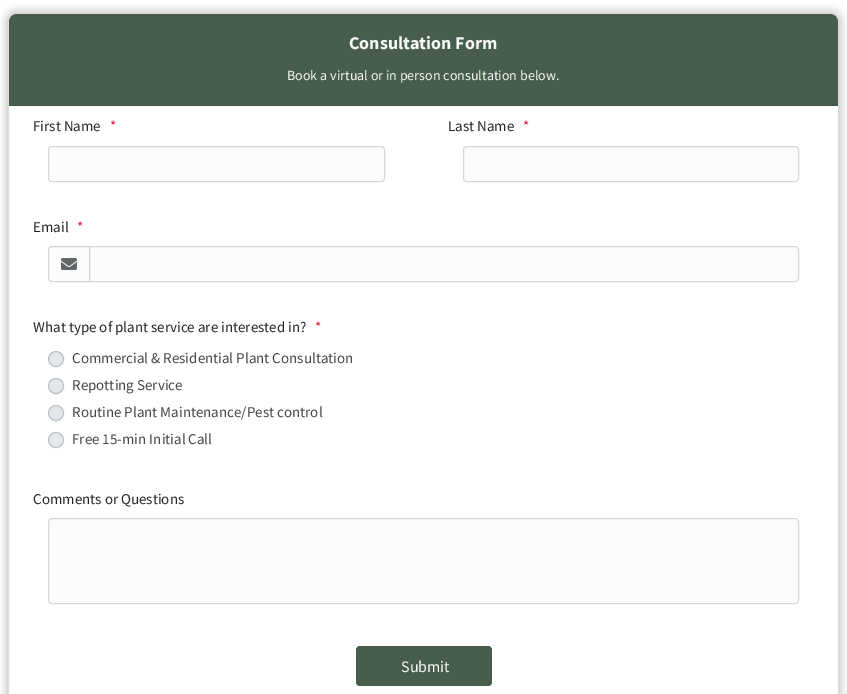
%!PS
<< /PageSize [847 694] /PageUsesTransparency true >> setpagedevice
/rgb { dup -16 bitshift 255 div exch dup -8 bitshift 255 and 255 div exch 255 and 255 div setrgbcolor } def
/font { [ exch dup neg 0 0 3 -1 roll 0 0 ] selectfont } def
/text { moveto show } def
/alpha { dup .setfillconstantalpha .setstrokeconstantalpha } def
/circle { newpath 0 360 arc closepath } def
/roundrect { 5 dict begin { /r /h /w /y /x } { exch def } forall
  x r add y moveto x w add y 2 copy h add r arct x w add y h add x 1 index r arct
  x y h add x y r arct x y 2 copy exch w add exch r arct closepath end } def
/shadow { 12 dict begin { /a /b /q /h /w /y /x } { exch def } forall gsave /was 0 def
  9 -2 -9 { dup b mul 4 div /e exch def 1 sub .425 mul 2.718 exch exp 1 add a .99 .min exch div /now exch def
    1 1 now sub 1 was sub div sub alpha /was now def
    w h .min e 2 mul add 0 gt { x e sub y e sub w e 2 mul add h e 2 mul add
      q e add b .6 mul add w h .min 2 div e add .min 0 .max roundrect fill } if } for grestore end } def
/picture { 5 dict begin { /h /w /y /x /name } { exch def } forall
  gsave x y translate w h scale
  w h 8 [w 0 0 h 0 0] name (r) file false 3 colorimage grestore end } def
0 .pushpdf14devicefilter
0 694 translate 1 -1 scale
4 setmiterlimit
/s1 { /SourceSansPro-Bold 18 font 16#F7F7F7 rgb } def
/s2 { /SourceSansPro-Regular 14 font 16#F7F7F7 rgb } def
/s3 { /SourceSansPro-Regular 15 font 16#212529 rgb } def
/s4 { /SourceSansPro-Regular 15 font 16#DC143C rgb } def
/s5 { /SourceSansPro-Regular 15 font 16#424649 rgb } def
/s6 { /SourceSansPro-Regular 16 font 16#F7F7F7 rgb } def
16#FFFFFF rgb
0 0 847 694 rectfill
16#000000 rgb
8 14 831 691 8 1 0.17 shadow
4 9 839 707 12 4 0.15 shadow
16#FFFFFF rgb
8.5 13.5 830 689 7.5 roundrect gsave fill grestore
16#E1DDDD rgb
stroke
16#465E4B rgb
17 14 moveto 830 14 lineto 834.5 14 838 17.5 838 22 curveto 838 106 lineto 9 106 lineto 9 22 lineto 9 17.5 12.5 14 17 14 curveto closepath fill
16#3D5242 rgb
9 105 829 1 rectfill
s1
(Consultation Form) 349 49 text
s2
(Book a virtual or in person consultation below.) 287 80 text
s3
(First Name) 33 131 text
s4
(*) 110 131 text
16#FCFCFC rgb
48.5 146.5 336 35 3.5 roundrect gsave fill grestore
16#D3D8DE rgb
stroke
s3
(Last Name) 448 131 text
s4
(*) 523 131 text
16#FCFCFC rgb
463.5 146.5 335 35 3.5 roundrect gsave fill grestore
16#D3D8DE rgb
stroke
s3
(Email) 33 232 text
s4
(*) 77 232 text
16#FCFCFC rgb
52 246.5 moveto 89.5 246.5 lineto 89.5 281.5 lineto 52 281.5 lineto 50 281.5 48.5 280 48.5 278 curveto 48.5 250 lineto 48.5 248 50 246.5 52 246.5 curveto closepath gsave fill grestore
16#CED4DA rgb
stroke
(pic1.raw) 61 258 16 12 picture
16#FCFCFC rgb
90 247 moveto 795 247 lineto 796.5 247 798 248.5 798 250 curveto 798 278 lineto 798 279.5 796.5 281 795 281 curveto 90 281 lineto closepath fill
0.9 alpha
16#CED4DA rgb
89.5 246.5 moveto 795 246.5 lineto 797 246.5 798.5 248 798.5 250 curveto 798.5 278 lineto 798.5 280 797 281.5 795 281.5 curveto 89.5 281.5 lineto closepath stroke
1 alpha
s3
(What type of plant service are interested in?) 33 332 text
s4
(*) 315 332 text
16#E3E6EA rgb
56 359 7.5 circle gsave fill grestore
16#B9C0C7 rgb
stroke
s5
(Commercial & Residential Plant Consultation) 72 363 text
16#E3E6EA rgb
56 386 7.5 circle gsave fill grestore
16#B9C0C7 rgb
stroke
s5
(Repotting Service) 72 390 text
16#E3E6EA rgb
56 413 7.5 circle gsave fill grestore
16#B9C0C7 rgb
stroke
s5
(Routine Plant Maintenance/Pest control) 72 417 text
16#E3E6EA rgb
56 440 7.5 circle gsave fill grestore
16#B9C0C7 rgb
stroke
s5
(Free 15-min Initial Call) 72 444 text
s3
(Comments or Questions) 33 504 text
16#FCFCFC rgb
48.5 518.5 750 85 3.5 roundrect gsave fill grestore
16#D3D8DE rgb
stroke
16#465E4B rgb
356 646 136 40 4 roundrect fill
s6
(Submit) 401 672 text
.poppdf14devicefilter showpage
